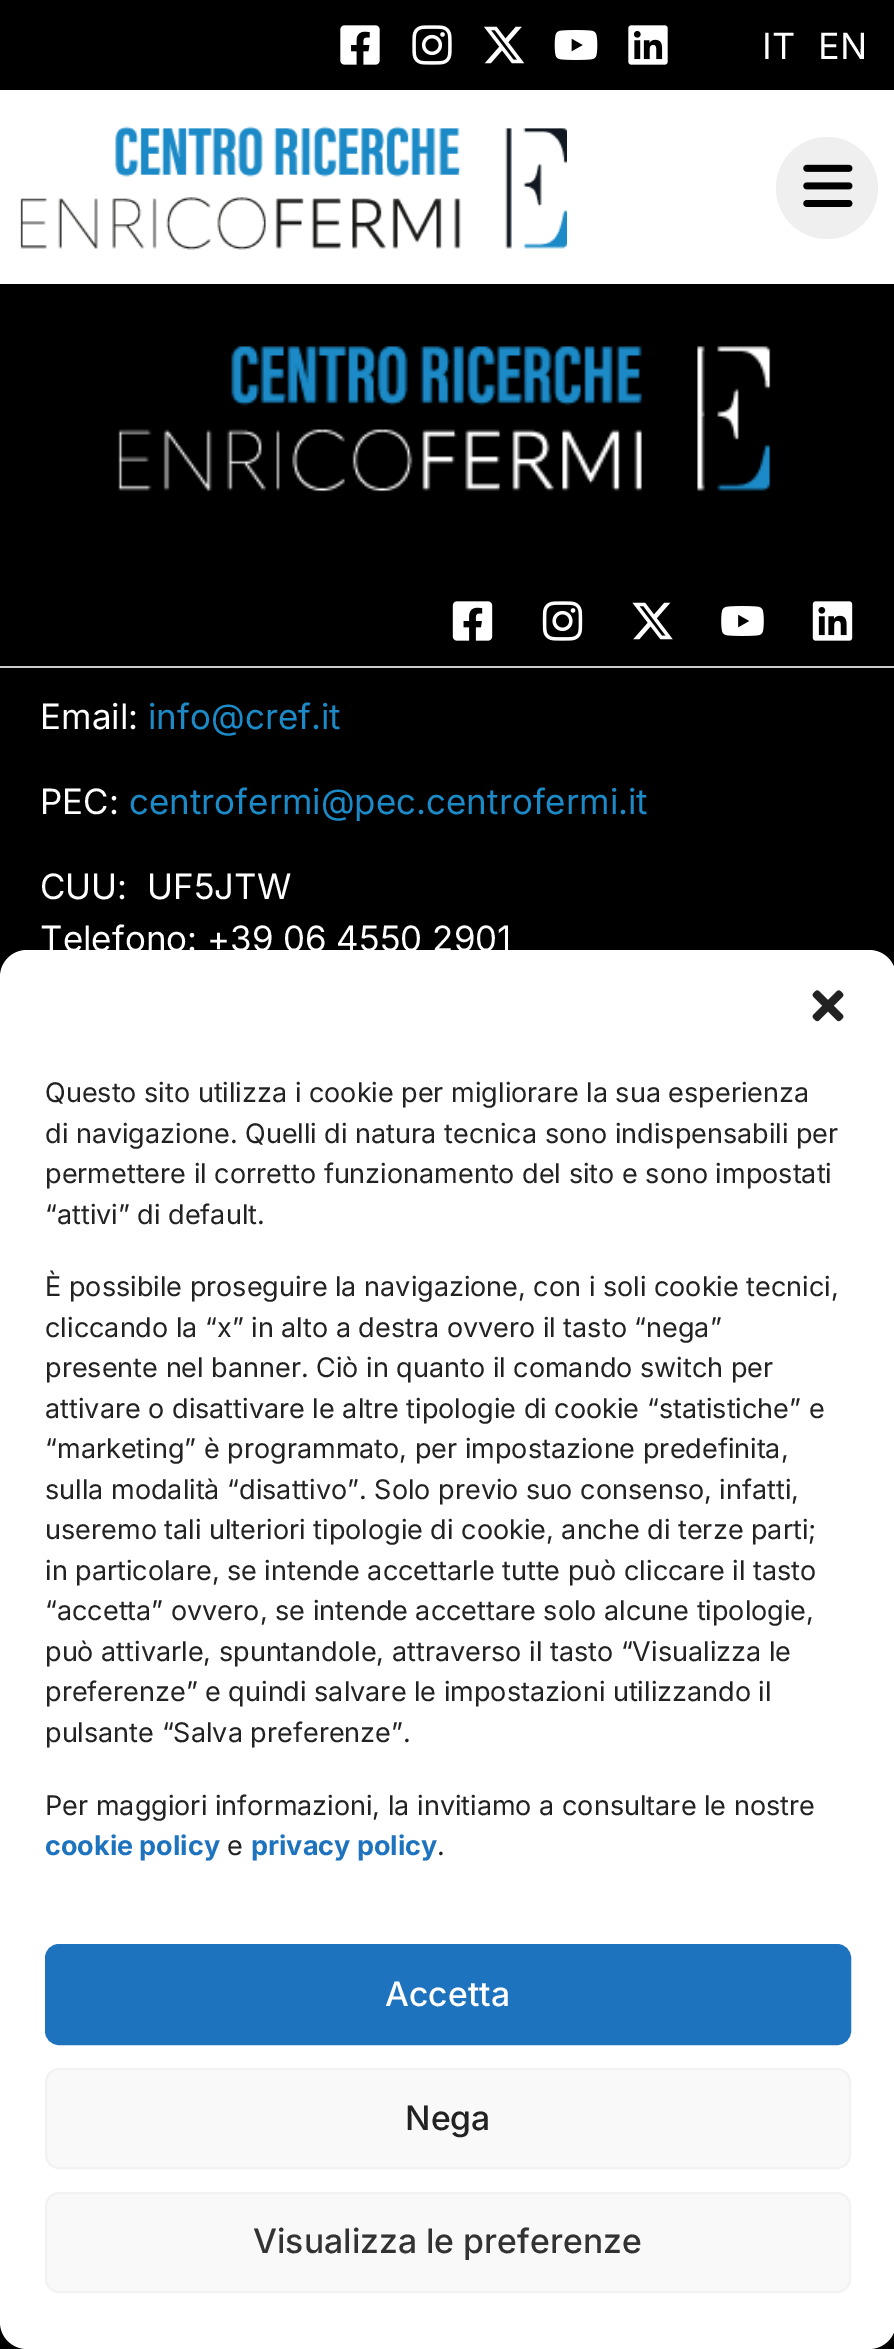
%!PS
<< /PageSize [894 2349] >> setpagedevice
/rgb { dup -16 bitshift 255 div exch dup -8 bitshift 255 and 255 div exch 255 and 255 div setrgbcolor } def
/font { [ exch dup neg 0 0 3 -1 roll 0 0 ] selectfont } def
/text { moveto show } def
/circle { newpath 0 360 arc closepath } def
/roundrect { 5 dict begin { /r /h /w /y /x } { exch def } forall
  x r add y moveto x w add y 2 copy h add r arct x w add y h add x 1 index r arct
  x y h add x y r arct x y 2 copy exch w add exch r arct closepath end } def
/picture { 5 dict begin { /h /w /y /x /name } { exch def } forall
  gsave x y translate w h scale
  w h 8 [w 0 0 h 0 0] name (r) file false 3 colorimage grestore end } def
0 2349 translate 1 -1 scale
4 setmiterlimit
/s1 { /Inter-Regular 36 font 16#FFFFFF rgb } def
/s2 { /Inter-Regular 34.9 font 16#FFFFFF rgb } def
/s3 { /Inter-Regular 34.9 font 16#1C8AC7 rgb } def
/s4 { /Inter-Regular 27 font 16#222222 rgb } def
/s5 { /Inter-Bold 27 font 16#1E73BE rgb } def
/s6 { /Inter-Medium 33.75 font 16#FFFFFF rgb } def
/s7 { /Inter-Medium 33.75 font 16#222222 rgb } def
/s8 { /Inter-Medium 33.75 font 16#333333 rgb } def
16#FFFFFF rgb
0 0 894 2349 rectfill
16#000000 rgb
0 0 894 90 rectfill
(pic1.raw) 340 25 40 40 picture
(pic2.raw) 412 25 40 40 picture
(pic3.raw) 484 26 41 38 picture
(pic4.raw) 554 30 44 30 picture
(pic5.raw) 628 25 40 40 picture
s1
(IT) 762 59 text
(EN) 818 59 text
(pic6.raw) 20 126 547 124 picture
16#EFEFEF rgb
827 188 51 circle fill
(pic7.raw) 803 164 50 43 picture
16#000000 rgb
0 284 894 382 rectfill
16#CCCCCC rgb
0 666 894 2 rectfill
(pic8.raw) 118 346 653 146 picture
(pic9.raw) 452 601 41 40 picture
(pic10.raw) 542 601 41 40 picture
(pic11.raw) 632 602 41 38 picture
(pic12.raw) 721 606 43 30 picture
(pic13.raw) 812 601 41 40 picture
16#000000 rgb
0 668 894 1681 rectfill
s2
(Email:) 40 729 text
s3
(info@cref.it) 148 729 text
s2
(PEC:) 40 814 text
s3
(centrofermi@pec.centrofermi.it) 129 814 text
s2
(CUU:  UF5JTW) 40 899 text
(Telefono: +39 06 4550 2901) 40 951 text
0 950 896 1399 27 roundrect fill
(pic14.raw) 812 990 32 32 picture
s4
(Questo sito utilizza i cookie per migliorare la sua esperienza) 45 1102 text
(di navigazione. Quelli di natura tecnica sono indispensabili per) 45 1143 text
(permettere il corretto funzionamento del sito e sono impostati) 45 1183 text
(“attivi” di default.) 45 1224 text
(È possibile proseguire la navigazione, con i soli cookie tecnici,) 45 1296 text
(cliccando la “x” in alto a destra ovvero il tasto “nega”) 45 1337 text
(presente nel banner. Ciò in quanto il comando switch per) 45 1377 text
(attivare o disattivare le altre tipologie di cookie “statistiche” e) 45 1418 text
(“marketing” è programmato, per impostazione predefinita,) 45 1458 text
(sulla modalità “disattivo”. Solo previo suo consenso, infatti,) 45 1499 text
(useremo tali ulteriori tipologie di cookie, anche di terze parti;) 45 1539 text
(in particolare, se intende accettarle tutte può cliccare il tasto) 45 1580 text
(“accetta” ovvero, se intende accettare solo alcune tipologie,) 45 1620 text
(può attivarle, spuntandole, attraverso il tasto “Visualizza le) 45 1661 text
(preferenze” e quindi salvare le impostazioni utilizzando il) 45 1701 text
(pulsante “Salva preferenze”.) 45 1742 text
(Per maggiori informazioni, la invitiamo a consultare le nostre) 45 1815 text
s5
(cookie policy) 45 1855 text
s4
(e) 227 1855 text
s5
(privacy policy) 251 1855 text
s4
(.) 437 1855 text
16#1E73BE rgb
46 1945 804 99 13 roundrect gsave fill grestore
2 setlinewidth
stroke
s6
(Accetta) 385 2006 text
16#F9F9F9 rgb
46 2069 804 99 13 roundrect gsave fill grestore
16#F2F2F2 rgb
stroke
s7
(Nega) 405 2130 text
16#F9F9F9 rgb
46 2193 804 99 13 roundrect gsave fill grestore
16#F2F2F2 rgb
stroke
s8
(Visualizza le preferenze) 253 2253 text
showpage
